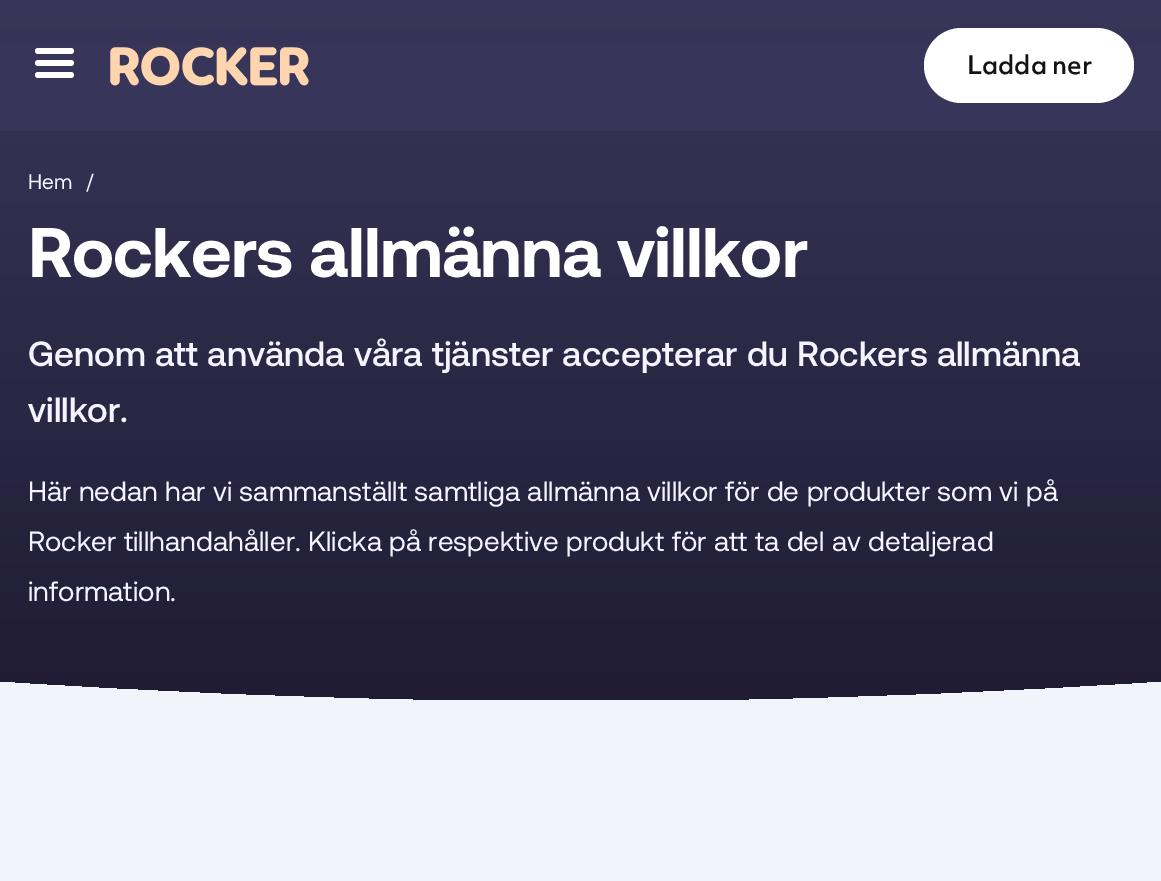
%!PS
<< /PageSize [1161 881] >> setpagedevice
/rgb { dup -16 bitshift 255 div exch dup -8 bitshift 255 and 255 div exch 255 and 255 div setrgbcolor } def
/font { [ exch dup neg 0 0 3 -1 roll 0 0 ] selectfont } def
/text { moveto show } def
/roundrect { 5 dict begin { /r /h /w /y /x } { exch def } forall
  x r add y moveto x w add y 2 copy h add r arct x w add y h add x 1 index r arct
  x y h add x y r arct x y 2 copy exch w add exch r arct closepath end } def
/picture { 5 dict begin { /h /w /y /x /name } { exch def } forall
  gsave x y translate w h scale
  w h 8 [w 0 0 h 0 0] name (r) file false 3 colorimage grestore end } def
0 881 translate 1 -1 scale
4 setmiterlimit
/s1 { /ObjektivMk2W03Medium-Medium 24.5 font 16#131314 rgb } def
16#F2F4FC rgb
0 0 1161 881 rectfill
gsave 0 0 moveto 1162 0 lineto 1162 681 lineto 1010 691 852 698 690 700 curveto 472 700 lineto 310 698 152 691 0 681 curveto closepath clip newpath
<< /ShadingType 2 /ColorSpace /DeviceRGB /Coords [581 0 581 700] /Extend [true true] /Function << /FunctionType 2 /Domain [0 1] /C0 [0.22 0.208 0.353] /C1 [0.125 0.11 0.2] /N 1 >> >> shfill grestore
16#38355A rgb
0 45 1161 86 rectfill
16#FFFFFF rgb
35 48 39 6 3 roundrect fill
35 60 39 6 3 roundrect fill
35 72 39 6 3 roundrect fill
(pic1.raw) 110 47 199 39 picture
924 28 210 75 37.5 roundrect fill
s1
(Ladda ner) 967 74 text
/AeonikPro-Regular 21 font
16#F2F4FF rgb
28 189 moveto 0.05 0 (Hem) ashow
86 189 moveto 0.05 0 (/) ashow
/AeonikPro-Bold 70 font
16#FFFFFF rgb
28 277 moveto -0.7 0 (Rockers allmänna villkor) ashow
/AeonikPro-Medium 35 font
16#F2F4FF rgb
28 366 moveto 0.05 0 (Genom att använda våra tjänster accepterar du Rockers allmänna) ashow
28 422 moveto 0.05 0 (villkor.) ashow
/AeonikPro-Regular 28 font
28 501 moveto 0.05 0 (Här nedan har vi sammanställt samtliga allmänna villkor för de produkter som vi på) ashow
28 551 moveto 0.05 0 (Rocker tillhandahåller. Klicka på respektive produkt för att ta del av detaljerad) ashow
28 601 moveto 0.05 0 (information.) ashow
showpage
